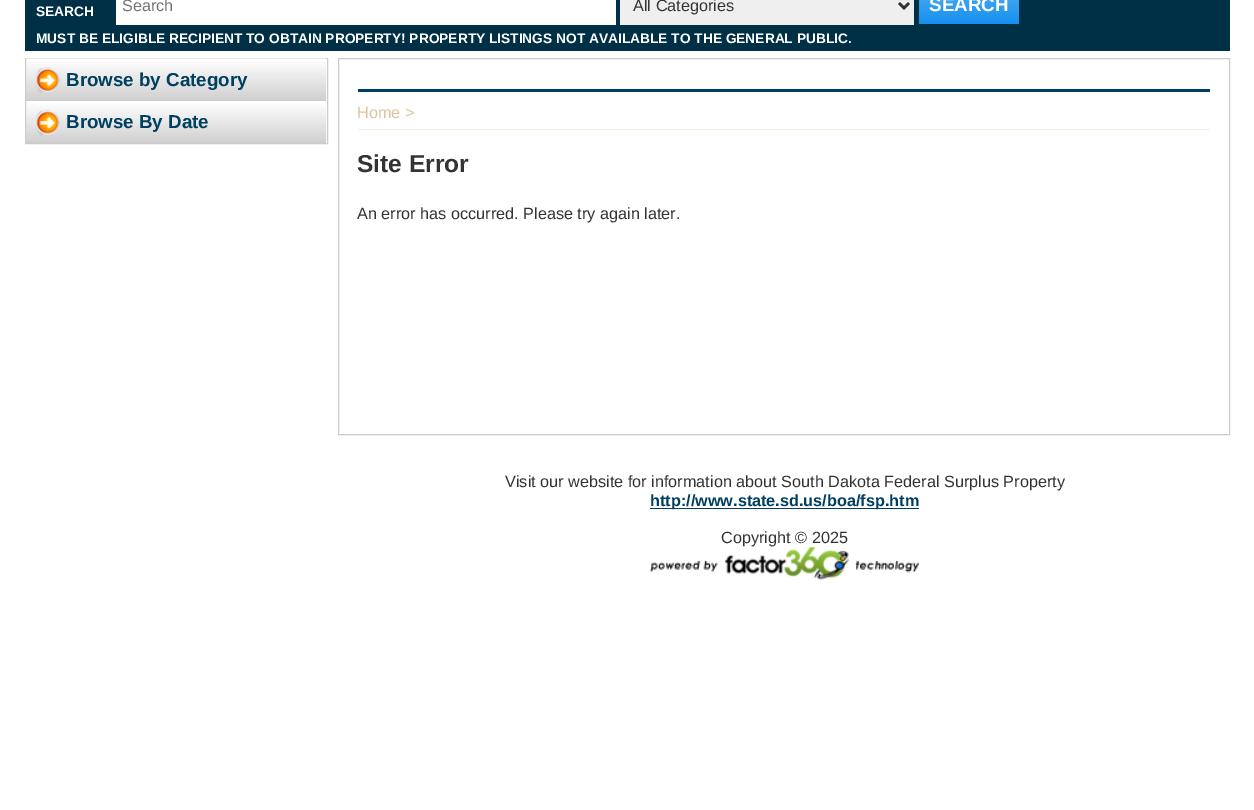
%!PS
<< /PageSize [1254 810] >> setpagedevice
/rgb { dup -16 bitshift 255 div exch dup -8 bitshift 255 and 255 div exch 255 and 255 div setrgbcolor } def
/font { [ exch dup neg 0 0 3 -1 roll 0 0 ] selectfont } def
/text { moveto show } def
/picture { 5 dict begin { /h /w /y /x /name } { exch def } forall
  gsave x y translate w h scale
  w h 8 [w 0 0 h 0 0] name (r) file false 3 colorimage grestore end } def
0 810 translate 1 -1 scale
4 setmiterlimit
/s1 { /LiberationSans-Bold 13.75 font 16#FFFFFF rgb } def
/s2 { /LiberationSans-Regular 16.25 font 16#757575 rgb } def
/s3 { /LiberationSans-Regular 16.25 font 16#333333 rgb } def
/s4 { /LiberationSans-Bold 18.75 font 16#FFFFFF rgb } def
/s5 { /LiberationSans-Bold 18.75 font 16#003F5F rgb } def
/s6 { /LiberationSans-Regular 16.25 font 16#DFC49D rgb } def
/s7 { /LiberationSans-Bold 24.5 font 16#333333 rgb } def
/s8 { /LiberationSans-Bold 16.25 font 16#003F5F rgb } def
16#FFFFFF rgb
0 0 1254 810 rectfill
16#003046 rgb
25 0 1205 51 rectfill
s1
(SEARCH) 36 16 text
116 0 500 25 rectfill
s2
(Search) 122 11 text
16#EFEFEF rgb
620 0 294 25 rectfill
16#333333 rgb
2.5 setlinewidth
899 3 moveto 904 8 lineto 909 3 lineto stroke
(All Categories) 633 11 text
gsave 919 0 moveto 1019 0 lineto 1019 24 lineto 919 24 lineto closepath clip newpath
<< /ShadingType 2 /ColorSpace /DeviceRGB /Coords [969 24 969 -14] /Extend [true true] /Function << /FunctionType 2 /Domain [0 1] /C0 [0.082 0.565 0.929] /C1 [0.322 0.678 0.949] /N 1 >> >> shfill grestore
s4
(SEARCH) 929 11 text
s1
(MUST BE ELIGIBLE RECIPIENT TO OBTAIN PROPERTY! PROPERTY LISTINGS NOT AVAILABLE TO THE GENERAL PUBLIC.) 36 43 text
16#CCCCCC rgb
1 setlinewidth
25.5 58.5 302 85 rectstroke
26 59 300 84 rectfill
(pic1.raw) 26 58 301 42 picture
s5
(Browse by Category) 66 86 text
(pic2.raw) 26 101 301 41 picture
(Browse By Date) 66 128 text
16#CCCCCC rgb
338.5 58.5 891 376 rectstroke
16#003F5F rgb
358 89 852 3 rectfill
16#F7F0E5 rgb
358 129 852 1 rectfill
s6
(Home >) 357 118 text
s7
(Site Error) 357 172 text
s3
(An error has occurred. Please try again later.) 357 219 text
(Visit our website for information about South Dakota Federal Surplus Property) 505 487 text
16#003F5F rgb
650 508 269 1 rectfill
s8
(http://www.state.sd.us/boa/fsp.htm) 650 506 text
s3
(Copyright © 2025) 721 543 text
(pic3.raw) 650 547 270 33 picture
showpage
